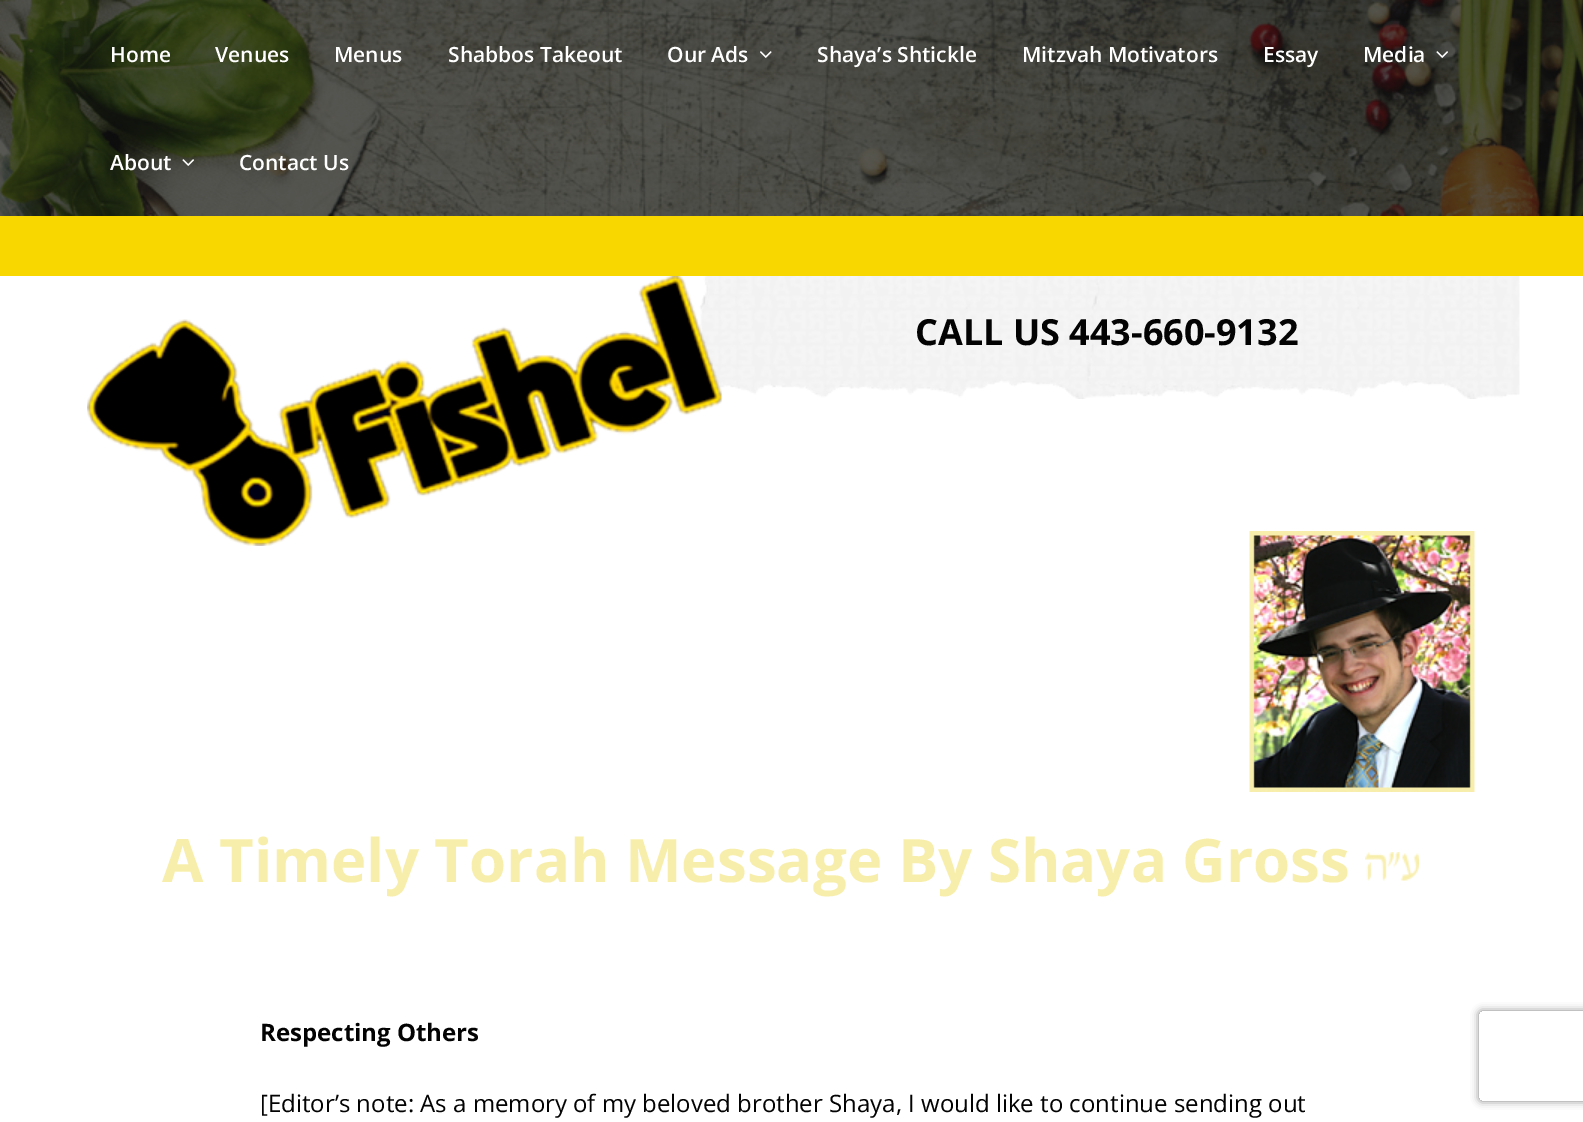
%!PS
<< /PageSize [1583 1122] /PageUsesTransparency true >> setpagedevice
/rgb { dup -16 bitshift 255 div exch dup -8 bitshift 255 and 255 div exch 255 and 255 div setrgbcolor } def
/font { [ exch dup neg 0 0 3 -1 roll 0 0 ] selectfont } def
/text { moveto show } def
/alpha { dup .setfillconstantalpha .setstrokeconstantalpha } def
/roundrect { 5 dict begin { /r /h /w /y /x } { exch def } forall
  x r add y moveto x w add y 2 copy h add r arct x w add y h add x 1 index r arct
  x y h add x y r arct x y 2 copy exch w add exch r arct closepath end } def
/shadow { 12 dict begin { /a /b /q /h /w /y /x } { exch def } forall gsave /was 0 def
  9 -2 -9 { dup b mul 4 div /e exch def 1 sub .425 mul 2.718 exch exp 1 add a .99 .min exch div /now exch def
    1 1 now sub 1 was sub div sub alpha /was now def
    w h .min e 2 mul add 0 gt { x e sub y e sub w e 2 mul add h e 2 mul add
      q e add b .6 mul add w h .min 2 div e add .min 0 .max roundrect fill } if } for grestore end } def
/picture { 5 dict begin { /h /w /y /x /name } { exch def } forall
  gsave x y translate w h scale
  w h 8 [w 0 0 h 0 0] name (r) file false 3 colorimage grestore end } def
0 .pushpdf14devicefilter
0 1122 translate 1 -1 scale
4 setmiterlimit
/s1 { /OpenSans-SemiBold 21 font 16#FFFFFF rgb } def
/s2 { /OpenSans-Bold 36 font 16#030303 rgb } def
/s3 { /OpenSans-Bold 60 font 16#F8EEAC rgb } def
/s4 { /OpenSans-Bold 24 font 16#030303 rgb } def
/s5 { /OpenSans-Regular 24 font 16#030303 rgb } def
16#FFFFFF rgb
0 0 1583 1122 rectfill
(pic1.raw) 0 0 1583 216 picture
s1
(Home) 110 62 text
(Venues) 215 62 text
(Menus) 334 62 text
(Shabbos Takeout) 448 62 text
(Our Ads) 667 62 text
(pic2.raw) 760 51 12 7 picture
(Shaya’s Shtickle) 817 62 text
(Mitzvah Motivators) 1022 62 text
(Essay) 1263 62 text
(Media) 1363 62 text
(pic3.raw) 1436 51 12 7 picture
(About) 110 170 text
(pic4.raw) 182 159 12 7 picture
(Contact Us) 239 170 text
16#F8D600 rgb
0 216 1583 60 rectfill
(pic6.raw) 699 276 821 123 picture
(pic5.raw) 87 276 635 270 picture
s2
(CALL US 443-660-9132) 915 345 text
(pic7.raw) 1249 531 226 261 picture
s3
(A Timely Torah Message By Shaya Gross) 162 882 text
(pic8.raw) 1365 852 54 29 picture
s4
(Respecting Others) 260 1041 text
s5
([Editor’s note: As a memory of my beloved brother Shaya, I would like to continue sending out) 260 1112 text
gsave
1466 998 moveto 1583 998 lineto 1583 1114 lineto 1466 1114 lineto closepath 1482 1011 moveto 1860 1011 lineto 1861.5 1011 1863 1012.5 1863 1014 curveto 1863 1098 lineto 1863 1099.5 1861.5 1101 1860 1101 curveto 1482 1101 lineto 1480.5 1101 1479 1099.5 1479 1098 curveto 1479 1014 lineto 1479 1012.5 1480.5 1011 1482 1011 curveto closepath eoclip newpath
16#808080 rgb
1479 1011 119 90 3 4 1 shadow
grestore
.poppdf14devicefilter showpage
